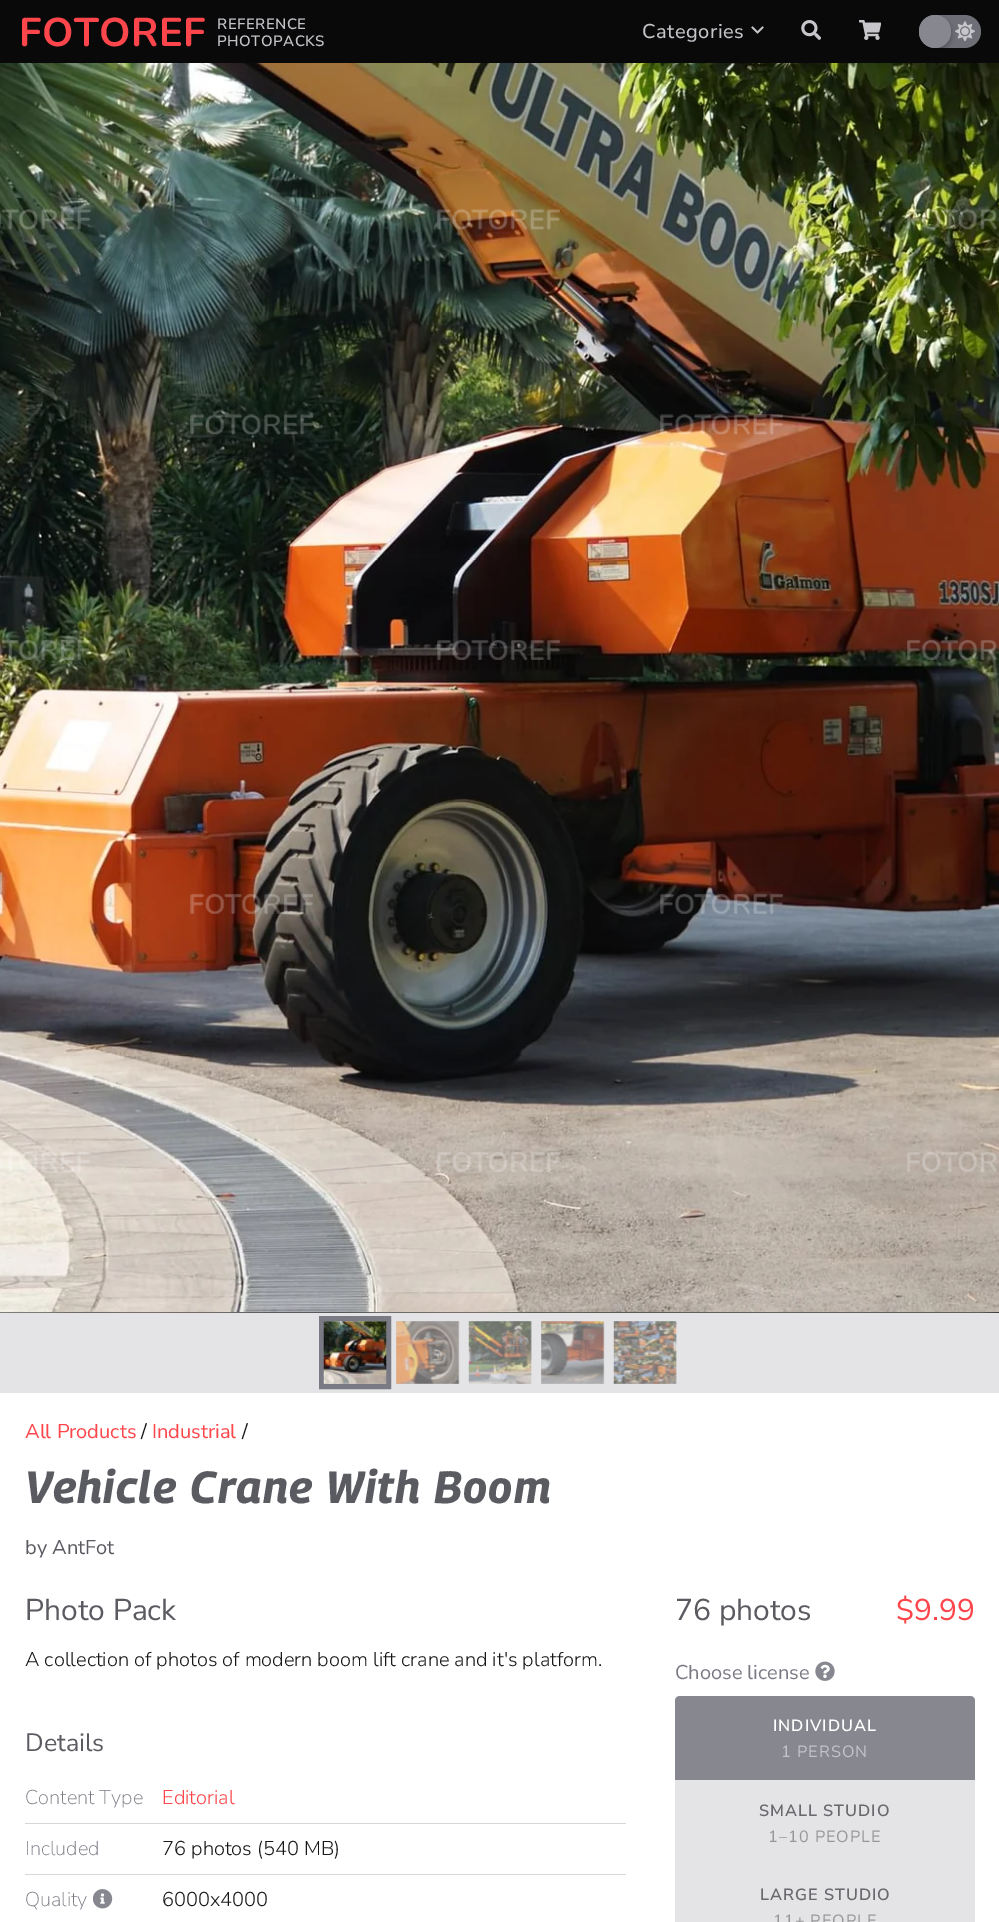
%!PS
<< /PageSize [999 1922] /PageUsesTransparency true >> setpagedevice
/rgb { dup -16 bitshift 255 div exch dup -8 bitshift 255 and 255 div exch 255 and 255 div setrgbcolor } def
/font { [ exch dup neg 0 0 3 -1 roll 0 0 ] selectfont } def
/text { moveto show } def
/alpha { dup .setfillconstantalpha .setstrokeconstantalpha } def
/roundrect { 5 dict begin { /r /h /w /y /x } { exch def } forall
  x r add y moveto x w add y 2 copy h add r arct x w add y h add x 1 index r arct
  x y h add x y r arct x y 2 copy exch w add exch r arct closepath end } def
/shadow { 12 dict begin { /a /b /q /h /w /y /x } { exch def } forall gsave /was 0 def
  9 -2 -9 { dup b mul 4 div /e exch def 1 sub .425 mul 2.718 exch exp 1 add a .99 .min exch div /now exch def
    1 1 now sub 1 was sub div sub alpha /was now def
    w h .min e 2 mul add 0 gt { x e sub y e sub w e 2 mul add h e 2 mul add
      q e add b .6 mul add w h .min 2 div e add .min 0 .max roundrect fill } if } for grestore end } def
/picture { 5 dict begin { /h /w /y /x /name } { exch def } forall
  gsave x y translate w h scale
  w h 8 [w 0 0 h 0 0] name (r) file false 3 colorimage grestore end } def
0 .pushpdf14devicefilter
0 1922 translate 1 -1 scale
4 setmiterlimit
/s1 { /NunitoSans-Regular 20 font 16#FC464B rgb } def
/s2 { /NunitoSans-Regular 20 font 16#18181A rgb } def
/s3 { /NunitoSans-Regular 20 font 16#5A5A61 rgb } def
/s4 { /NunitoSans-Regular 30 font 16#5A5A61 rgb } def
/s5 { /NunitoSans-Light 20 font 16#18181A rgb } def
/s6 { /NunitoSans-Regular 25 font 16#5A5A61 rgb } def
/s7 { /NunitoSans-ExtraLight 20 font 16#7A7A84 rgb } def
/s8 { /NunitoSans-Light 20 font 16#FC464B rgb } def
/s9 { /NunitoSans-Regular 30 font 16#FC464B rgb } def
/s10 { /NunitoSans-Regular 20 font 16#7A7A84 rgb } def
16#FFFFFF rgb
0 0 999 1922 rectfill
16#09090A rgb
0 0 999 63 rectfill
/Nunito-ExtraLight 40 font
16#FC464B rgb
19 46 moveto 0.5 0 (FOTOREF) ashow
/NunitoSans-SemiBold 15 font
16#C3C3C8 rgb
217 29 moveto 0.5 0 (REFERENCE) ashow
217 46 moveto 0.5 0 (PHOTOPACKS) ashow
/NunitoSans-Medium 20 font
642 38 moveto 0.5 0 (Categories) ashow
(pic1.raw) 751 26 13 8 picture
(pic2.raw) 801 20 20 20 picture
(pic3.raw) 859 20 22 20 picture
16#6E6E77 rgb
919 15 62 33 16.5 roundrect fill
(pic4.raw) 955 21 20 20 picture
16#000000 rgb
919 18 32 32 16 3 0.3 shadow
16#878790 rgb
919 15 32 33 16 roundrect fill
16#09090A rgb
0 1312 999 1 rectfill
(pic5.raw) 0 63 999 1249 picture
(pic6.raw) 0 209 997 963 picture
(pic7.raw) 0 1312 999 1 picture
16#E4E4E6 rgb
0 1313 999 80 rectfill
16#7A7A84 rgb
5 setlinewidth
321.5 1318.5 67 68 rectstroke
16#BFBFC4 rgb
324 1321 62 63 rectfill
(pic8.raw) 323 1321 64 63 picture
16#D2D2D5 rgb
396 1321 63 63 rectfill
(pic9.raw) 396 1321 64 63 picture
469 1321 62 63 rectfill
(pic10.raw) 468 1321 64 63 picture
541 1321 63 63 rectfill
(pic11.raw) 541 1321 64 63 picture
614 1321 62 63 rectfill
(pic12.raw) 613 1321 64 63 picture
s1
(All Products) 25 1438 text
s2
(/) 141 1438 text
s1
(Industrial) 152 1438 text
s2
(/) 242 1438 text
/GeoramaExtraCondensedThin-BoldItalic 45 font
16#5A5A61 rgb
25 1503 moveto 1.2 0 (Vehicle Crane With Boom) ashow
s3
(by AntFot) 25 1554 text
s4
(Photo Pack) 25 1620 text
s5
(A collection of photos of modern boom lift crane and it's platform.) 25 1666 text
s6
(Details) 25 1751 text
s7
(Content Type) 25 1804 text
s8
(Editorial) 162 1804 text
s7
(Included) 25 1855 text
16#D7D7DA rgb
25 1823 601 1 rectfill
s5
(76 photos \(540 MB\)) 162 1855 text
s7
(Quality) 25 1906 text
(pic13.raw) 93 1889 20 20 picture
16#D7D7DA rgb
25 1874 601 1 rectfill
s5
(6000x4000) 162 1906 text
s4
(76 photos) 675 1620 text
s9
($9.99) 896 1620 text
s10
(Choose license) 675 1679 text
(pic14.raw) 815 1661 20 20 picture
16#878790 rgb
680 1696 moveto 970 1696 lineto 973 1696 975 1698 975 1701 curveto 975 1780 lineto 675 1780 lineto 675 1701 lineto 675 1698 677 1696 680 1696 curveto closepath fill
/NunitoSans-SemiBold 16.25 font
16#FFFFFF rgb
773 1731 moveto 1 0 (INDIVIDUAL) ashow
/NunitoSans-Regular 16.25 font
16#C3C3C8 rgb
781 1757 moveto 1 0 (1 PERSON) ashow
16#E4E4E6 rgb
675 1780 300 142 rectfill
/NunitoSans-SemiBold 16.25 font
16#68686D rgb
759 1816 moveto 1 0 (SMALL STUDIO) ashow
/NunitoSans-Regular 16.25 font
16#97979B rgb
768 1842 moveto 1 0 (1–10 PEOPLE) ashow
/NunitoSans-SemiBold 16.25 font
16#68686D rgb
760 1900 moveto 1 0 (LARGE STUDIO) ashow
/NunitoSans-Regular 16.25 font
16#97979B rgb
773 1926 moveto 1 0 (11+ PEOPLE) ashow
.poppdf14devicefilter showpage
